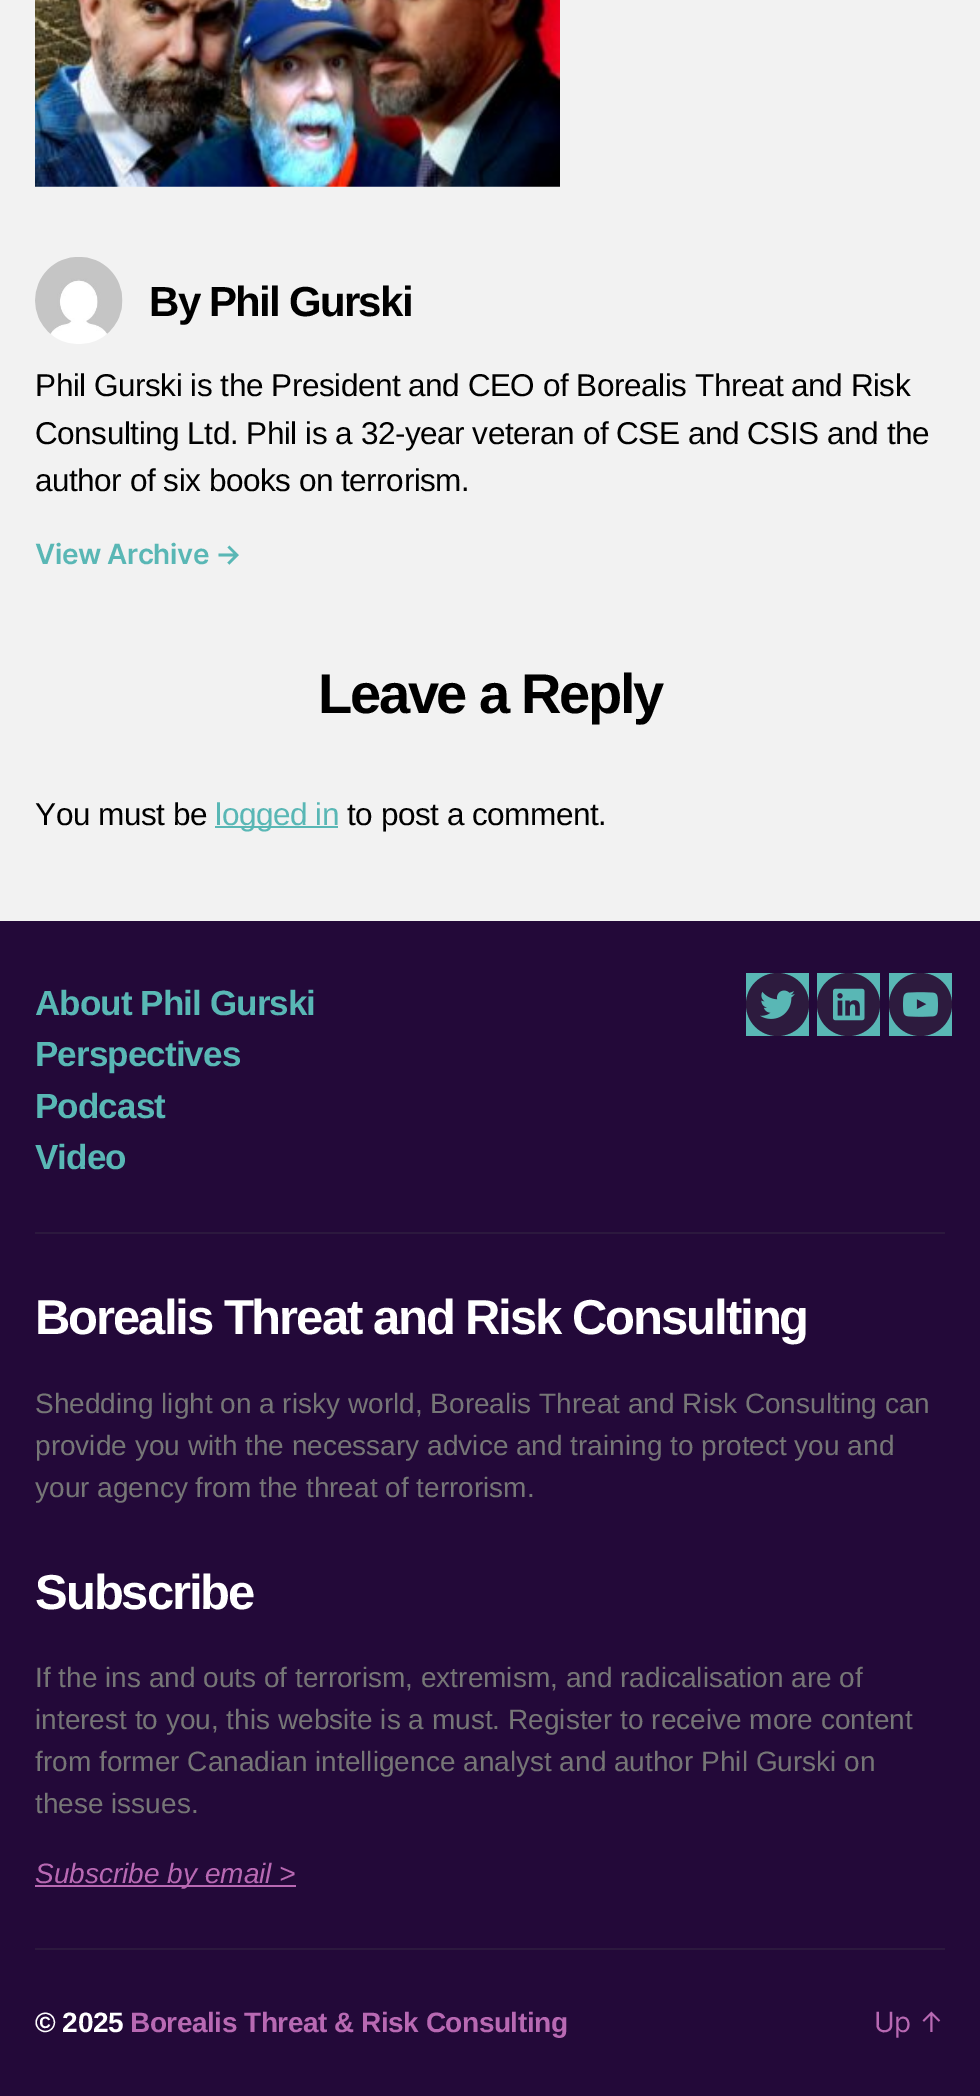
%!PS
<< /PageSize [980 2096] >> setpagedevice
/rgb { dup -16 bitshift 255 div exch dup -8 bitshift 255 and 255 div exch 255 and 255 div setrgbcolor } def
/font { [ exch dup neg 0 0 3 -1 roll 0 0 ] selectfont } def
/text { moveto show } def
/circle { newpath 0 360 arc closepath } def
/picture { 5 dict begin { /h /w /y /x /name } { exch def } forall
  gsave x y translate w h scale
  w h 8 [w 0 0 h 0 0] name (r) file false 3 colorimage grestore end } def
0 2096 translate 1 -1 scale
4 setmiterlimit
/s1 { /LiberationSans-Regular 28 font 16#767676 rgb } def
/s2 { /LiberationSans-Italic 28 font 16#B869B3 rgb } def
16#F2F2F2 rgb
0 0 980 2096 rectfill
(pic1.raw) 35 0 525 187 picture
(pic2.raw) 35 257 88 87 picture
/LiberationSans-Bold 42 font
16#000000 rgb
149 316 moveto -1.75 0 (By Phil Gurski) ashow
/LiberationSans-Regular 31.5 font
35 396 moveto -0.47 0 (Phil Gurski is the President and CEO of Borealis Threat and Risk) ashow
35 444 moveto -0.47 0 (Consulting Ltd. Phil is a 32-year veteran of CSE and CSIS and the) ashow
35 491 moveto -0.47 0 (author of six books on terrorism.) ashow
/Inter-SemiBold 28 font
16#59B7B5 rgb
35 564 moveto -0.47 0 (View Archive →) ashow
/LiberationSans-Bold 56 font
16#000000 rgb
318 713 moveto -2.3 0 (Leave a Reply) ashow
/LiberationSans-Regular 31.5 font
35 825 moveto -0.47 0 (You must be) ashow
16#59B7B5 rgb
215 826 123 2 rectfill
215 825 moveto -0.47 0 (logged in) ashow
16#000000 rgb
347 825 moveto -0.47 0 (to post a comment.) ashow
16#230939 rgb
0 921 980 1175 rectfill
16#2C193E rgb
35 1232 910 2 rectfill
/LiberationSans-Bold 35 font
16#59B7B5 rgb
35 1015 moveto -0.9 0 (About Phil Gurski) ashow
35 1066 moveto -0.9 0 (Perspectives) ashow
35 1118 moveto -0.9 0 (Podcast) ashow
35 1169 moveto -0.9 0 (Video) ashow
746 973 63 63 rectfill
16#2D1B3E rgb
777.5 1004.5 31.5 circle fill
(pic3.raw) 760 990 35 29 picture
16#59B7B5 rgb
817 973 63 63 rectfill
16#2D1B3E rgb
848.5 1004.5 31.5 circle fill
(pic4.raw) 833 988 32 33 picture
16#59B7B5 rgb
889 973 63 63 rectfill
16#2D1B3E rgb
920.5 1004.5 31.5 circle fill
(pic5.raw) 903 992 35 25 picture
16#2C193E rgb
35 1948 910 2 rectfill
/LiberationSans-Bold 49 font
16#FFFFFF rgb
35 1334 moveto -2.05 0 (Borealis Threat and Risk Consulting) ashow
s1
(Shedding light on a risky world, Borealis Threat and Risk Consulting can) 35 1413 text
(provide you with the necessary advice and training to protect you and) 35 1455 text
(your agency from the threat of terrorism.) 35 1497 text
/LiberationSans-Bold 49 font
16#FFFFFF rgb
35 1609 moveto -2.05 0 (Subscribe) ashow
s1
(If the ins and outs of terrorism, extremism, and radicalisation are of) 35 1687 text
(interest to you, this website is a must. Register to receive more content) 35 1729 text
(from former Canadian intelligence analyst and author Phil Gurski on) 35 1771 text
(these issues.) 35 1813 text
16#B869B3 rgb
35 1885 261 2 rectfill
s2
(Subscribe by email >) 35 1883 text
/LiberationSans-Bold 28 font
16#FFFFFF rgb
35 2032 moveto -0.47 0 (© 2025) ashow
16#B869B3 rgb
130 2032 moveto -0.47 0 (Borealis Threat & Risk Consulting) ashow
/Inter-Regular 28 font
874 2032 moveto -0.47 0 (Up ↑) ashow
showpage
